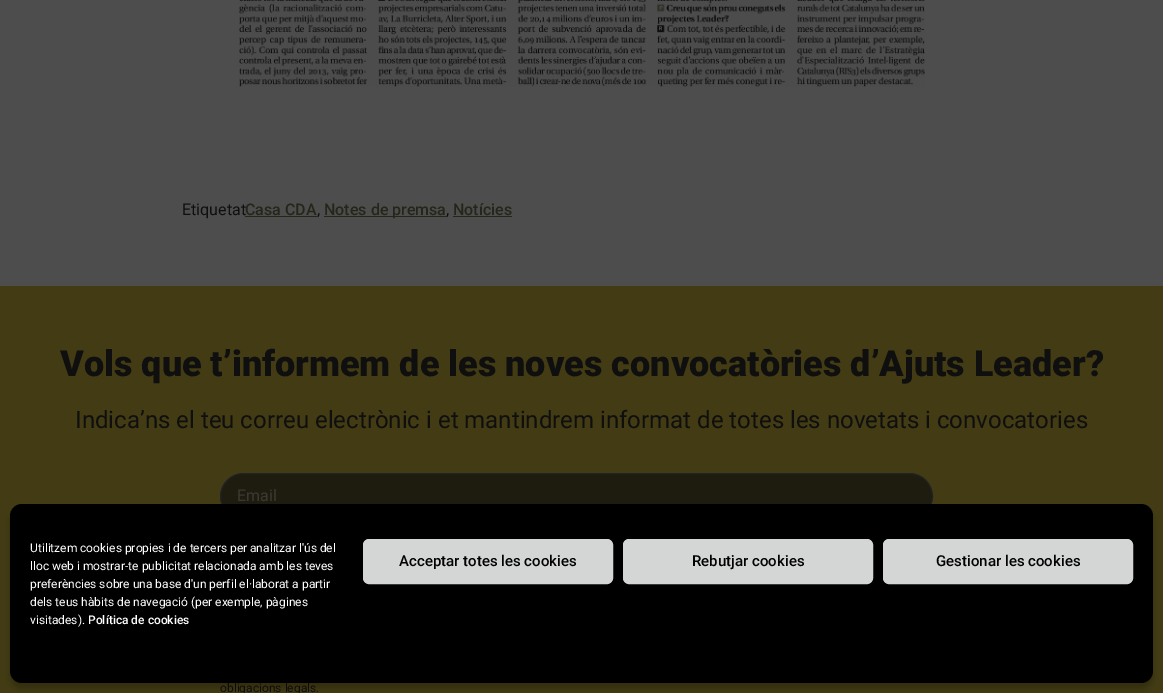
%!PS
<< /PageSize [1163 693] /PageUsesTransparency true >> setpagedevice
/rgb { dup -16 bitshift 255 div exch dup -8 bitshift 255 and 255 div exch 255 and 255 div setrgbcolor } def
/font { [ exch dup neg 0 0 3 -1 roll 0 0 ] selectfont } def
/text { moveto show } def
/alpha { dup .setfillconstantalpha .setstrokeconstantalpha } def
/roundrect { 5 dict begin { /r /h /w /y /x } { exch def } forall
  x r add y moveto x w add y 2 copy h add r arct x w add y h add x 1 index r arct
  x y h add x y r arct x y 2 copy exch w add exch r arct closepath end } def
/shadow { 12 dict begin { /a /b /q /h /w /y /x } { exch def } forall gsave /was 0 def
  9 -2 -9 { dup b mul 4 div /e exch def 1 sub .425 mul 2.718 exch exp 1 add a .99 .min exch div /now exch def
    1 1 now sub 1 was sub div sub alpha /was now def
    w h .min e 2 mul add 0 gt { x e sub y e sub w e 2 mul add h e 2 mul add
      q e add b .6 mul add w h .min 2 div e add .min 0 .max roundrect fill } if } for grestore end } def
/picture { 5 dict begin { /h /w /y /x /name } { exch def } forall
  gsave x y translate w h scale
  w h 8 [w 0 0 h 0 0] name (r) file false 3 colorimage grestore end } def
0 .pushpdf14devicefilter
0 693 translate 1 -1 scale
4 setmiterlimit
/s1 { /Roboto-Regular 16 font 16#0F0F0F rgb } def
/s2 { /Roboto-Medium 16 font 16#24261A rgb } def
/s3 { /Roboto-Black 36 font 16#0F0F0F rgb } def
/s4 { /Roboto-Regular 24 font 16#0F0F0F rgb } def
/s5 { /Roboto-Regular 16 font 16#3A3934 rgb } def
/s6 { /Roboto-Regular 12 font 16#0F0F0F rgb } def
/s7 { /Roboto-Regular 12 font 16#FFFFFF rgb } def
/s8 { /Roboto-Medium 12 font 16#FFFFFF rgb } def
/s9 { /Roboto-Medium 15 font 16#020202 rgb } def
16#4D4D4D rgb
0 0 1163 693 rectfill
(pic1.raw) 239 0 686 87 picture
s1
(Etiquetat) 182 215 text
s2
(Casa CDA) 245 215 text
245 216 72 1 rectfill
s1
(,) 317 215 text
16#24261A rgb
324 216 122 1 rectfill
s2
(Notes de premsa) 324 215 text
s1
(,) 446 215 text
16#24261A rgb
453 216 59 1 rectfill
s2
(Notícies) 453 215 text
16#433B13 rgb
0 286 1163 407 rectfill
s3
(Vols que t’informem de les noves convocatòries d’Ajuts Leader?) 60 376 text
s4
(Indica’ns el teu correu electrònic i et mantindrem informat de totes les novetats i convocatories) 75 428 text
16#1E1C0F rgb
220.5 473.5 712 46 23 roundrect gsave fill grestore
16#202226 rgb
stroke
s5
(Email) 237 501 text
s6
(obligacions legals.) 220 692 text
16#000000 rgb
10 510 1143 179 12 3 0.23 shadow
10 504 1143 179 12 roundrect fill
s7
(Utilitzem cookies propies i de tercers per analitzar l'ús del) 30 552 text
(lloc web i mostrar-te publicitat relacionada amb les teves) 30 570 text
(preferències sobre una base d'un perfil el·laborat a partir) 30 588 text
(dels teus hàbits de navegació \(per exemple, pàgines) 30 606 text
(visitades\).) 30 624 text
s8
(Política de cookies) 88 624 text
16#D3D6D4 rgb
363.5 539.5 249 44 5.5 roundrect gsave fill grestore
stroke
s9
(Acceptar totes les cookies) 399 566 text
16#D3D6D4 rgb
623.5 539.5 249 44 5.5 roundrect gsave fill grestore
stroke
s9
(Rebutjar cookies) 692 566 text
16#D3D6D4 rgb
883.5 539.5 249 44 5.5 roundrect gsave fill grestore
stroke
s9
(Gestionar les cookies) 936 566 text
.poppdf14devicefilter showpage
